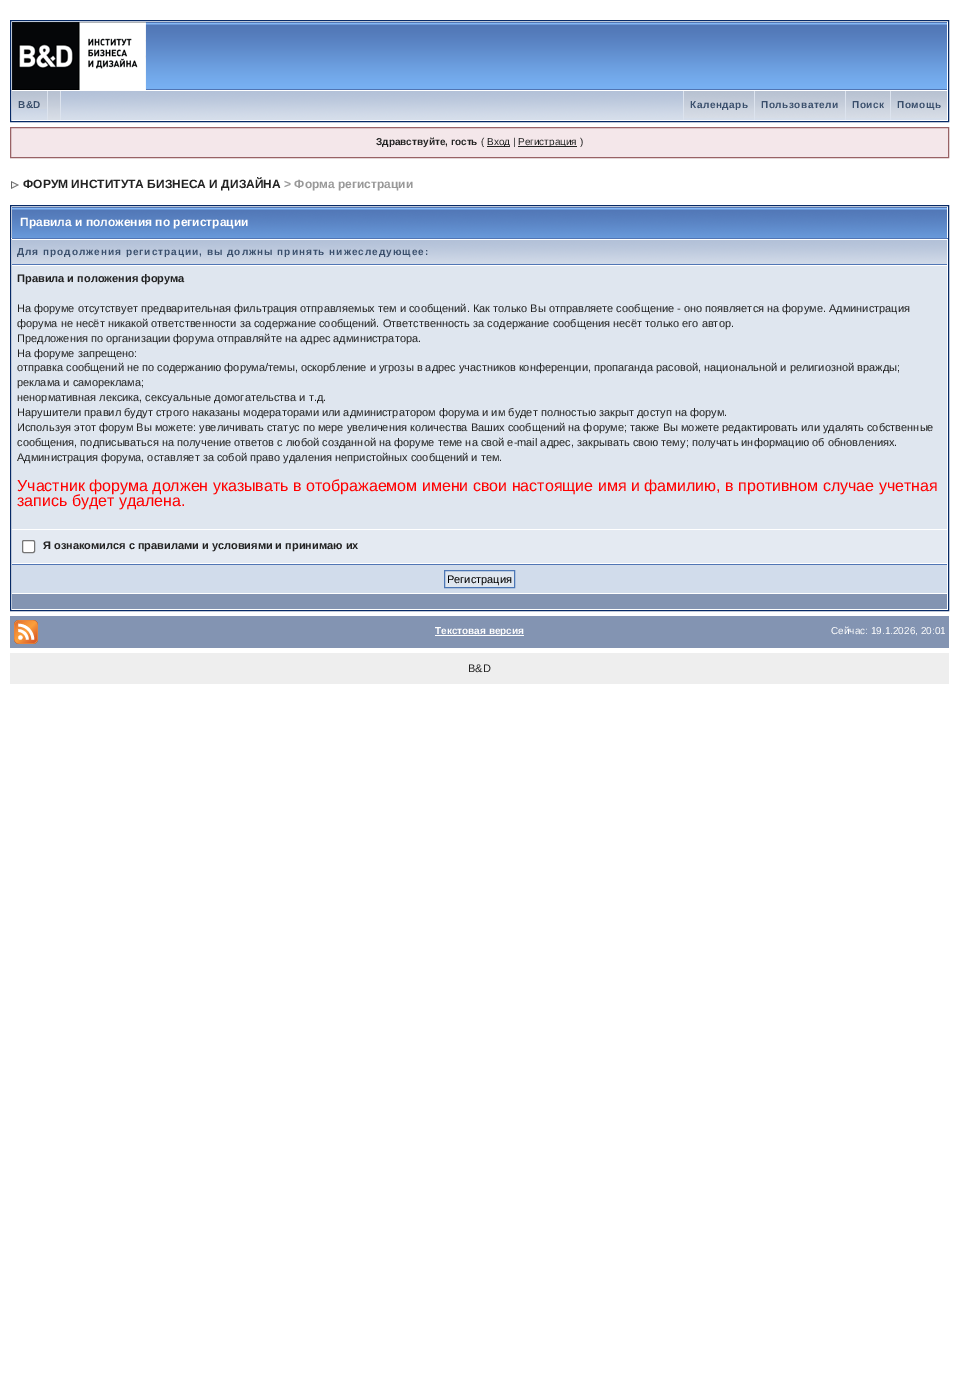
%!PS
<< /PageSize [959 1394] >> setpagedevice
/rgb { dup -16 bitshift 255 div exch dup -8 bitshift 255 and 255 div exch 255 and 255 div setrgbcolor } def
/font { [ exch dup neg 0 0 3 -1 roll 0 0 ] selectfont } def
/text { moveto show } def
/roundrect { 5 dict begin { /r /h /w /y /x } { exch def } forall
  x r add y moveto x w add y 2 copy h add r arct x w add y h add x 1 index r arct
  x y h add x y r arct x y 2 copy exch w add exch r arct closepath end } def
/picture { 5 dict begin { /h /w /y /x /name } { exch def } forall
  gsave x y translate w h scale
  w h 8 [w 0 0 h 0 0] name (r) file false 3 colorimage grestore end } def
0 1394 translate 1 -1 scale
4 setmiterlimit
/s1 { /LiberationSans-Bold 10 font 16#222222 rgb } def
/s2 { /LiberationSans-Regular 10 font 16#222222 rgb } def
/s3 { /LiberationSans-Bold 12 font 16#222222 rgb } def
/s4 { /LiberationSans-Bold 12 font 16#999999 rgb } def
/s5 { /LiberationSans-Bold 12 font 16#FFFFFF rgb } def
/s6 { /LiberationSans-Bold 11 font 16#222222 rgb } def
/s7 { /LiberationSans-Regular 11 font 16#222222 rgb } def
/s8 { /LiberationSans-Regular 16 font 16#FF0000 rgb } def
/s9 { /LiberationSans-Regular 11 font 16#000000 rgb } def
/s10 { /LiberationSans-Bold 10 font 16#FFFFFF rgb } def
/s11 { /LiberationSans-Regular 10 font 16#FFFFFF rgb } def
16#FFFFFF rgb
0 0 959 1394 rectfill
16#072A66 rgb
10.5 20.5 938 101 rectstroke
(pic1.raw) 146 22 801 68 picture
(pic2.raw) 12 22 134 68 picture
(pic3.raw) 12 91 935 29 picture
(pic4.raw) 12 91 35 18 picture
16#DCE3EE rgb
47 91 1 29 rectfill
/LiberationSans-Bold 10 font
16#3A4F6C rgb
18 108 moveto 0.5 0 (B&D) ashow
(pic5.raw) 48 91 12 29 picture
16#DCE3EE rgb
60 91 1 29 rectfill
(pic6.raw) 684 91 70 27 picture
683 91 1 29 rectfill
16#3A4F6C rgb
690 108 moveto 0.5 0 (Календарь) ashow
(pic7.raw) 755 91 90 27 picture
16#DCE3EE rgb
754 91 1 29 rectfill
16#3A4F6C rgb
761 108 moveto 0.5 0 (Пользователи) ashow
(pic8.raw) 846 91 44 27 picture
16#DCE3EE rgb
845 91 1 29 rectfill
16#3A4F6C rgb
852 108 moveto 0.5 0 (Поиск) ashow
(pic9.raw) 891 91 56 27 picture
16#DCE3EE rgb
890 91 1 29 rectfill
16#3A4F6C rgb
897 108 moveto 0.5 0 (Помощь) ashow
16#F4E7EA rgb
10.5 127.5 moveto 948.5 127.5 lineto 948.5 157.5 lineto 10.5 157.5 lineto closepath gsave fill grestore
16#986265 rgb
stroke
s1
(Здравствуйте, гость) 376 145 text
s2
(\() 481 145 text
487 146 23 1 rectfill
(Вход |) 487 145 text
518 146 59 1 rectfill
(Регистрация \)) 518 145 text
(pic10.raw) 11 181 8 8 picture
s3
(ФОРУМ ИНСТИТУТА БИЗНЕСА И ДИЗАЙНА) 23 188 text
s4
(> Форма регистрации) 284 188 text
16#072A66 rgb
10.5 205.5 938 405 rectstroke
(pic11.raw) 12 207 935 31 picture
16#5176B5 rgb
11 238 937 1 rectfill
16#FFFFFF rgb
11 238 1 1 rectfill
(Правила и положения по регистрации) 20 226 text
(pic12.raw) 12 240 935 24 picture
16#5176B5 rgb
12 264 935 1 rectfill
/LiberationSans-Bold 10 font
16#3A4F6C rgb
17 255 moveto 1 0 (Для продолжения регистрации, вы должны принять нижеследующее:) ashow
16#DFE6EF rgb
12 266 935 263 rectfill
s6
(Правила и положения форума) 17 282 text
s7
(На форуме отсутствует предварительная фильтрация отправляемых тем и сообщений. Как только Вы отправляете сообщение - оно появляется на форуме. Администрация) 17 312 text
(форума не несёт никакой ответственности за содержание сообщений. Ответственность за содержание сообщения несёт только его автор.) 17 327 text
(Предложения по организации форума отправляйте на адрес администратора.) 17 342 text
(На форуме запрещено:) 17 357 text
(отправка сообщений не по содержанию форума/темы, оскорбление и угрозы в адрес участников конференции, пропаганда расовой, национальной и религиозной вражды;) 17 371 text
(реклама и самореклама;) 17 386 text
(ненормативная лексика, сексуальные домогательства и т.д.) 17 401 text
(Нарушители правил будут строго наказаны модераторами или администратором форума и им будет полностью закрыт доступ на форум.) 17 416 text
(Используя этот форум Вы можете: увеличивать статус по мере увеличения количества Ваших сообщений на форуме; также Вы можете редактировать или удалять собственные) 17 431 text
(сообщения, подписываться на получение ответов с любой созданной на форуме теме на свой e-mail адрес, закрывать свою тему; получать информацию об обновлениях.) 17 446 text
(Администрация форума, оставляет за собой право удаления непристойных сообщений и тем.) 17 461 text
s8
(Участник форума должен указывать в отображаемом имени свои настоящие имя и фамилию, в противном случае учетная) 17 491 text
(запись будет удалена.) 17 506 text
16#E4EAF2 rgb
12 530 935 33 rectfill
16#FFFFFF rgb
22.5 540.5 12 12 1.5 roundrect gsave fill grestore
16#767676 rgb
stroke
s6
(Я ознакомился с правилами и условиями и принимаю их) 43 549 text
16#D1DCEB rgb
12 565 935 28 rectfill
16#5176B5 rgb
12 564 935 1 rectfill
16#DFE6EF rgb
444.5 570.5 moveto 514.5 570.5 lineto 514.5 587.5 lineto 444.5 587.5 lineto closepath gsave fill grestore
16#4C77B6 rgb
stroke
s9
(Регистрация) 447 583 text
16#8394B2 rgb
12 594 935 15 rectfill
10 616 939 32 rectfill
(pic13.raw) 14 620 24 24 picture
16#FFFFFF rgb
435 635 89 1 rectfill
s10
(Текстовая версия) 435 634 text
s11
(Сейчас: 19.1.2026, 20:01) 831 634 text
16#EEEEEE rgb
10 653 939 31 rectfill
s7
(B&D) 468 672 text
showpage
